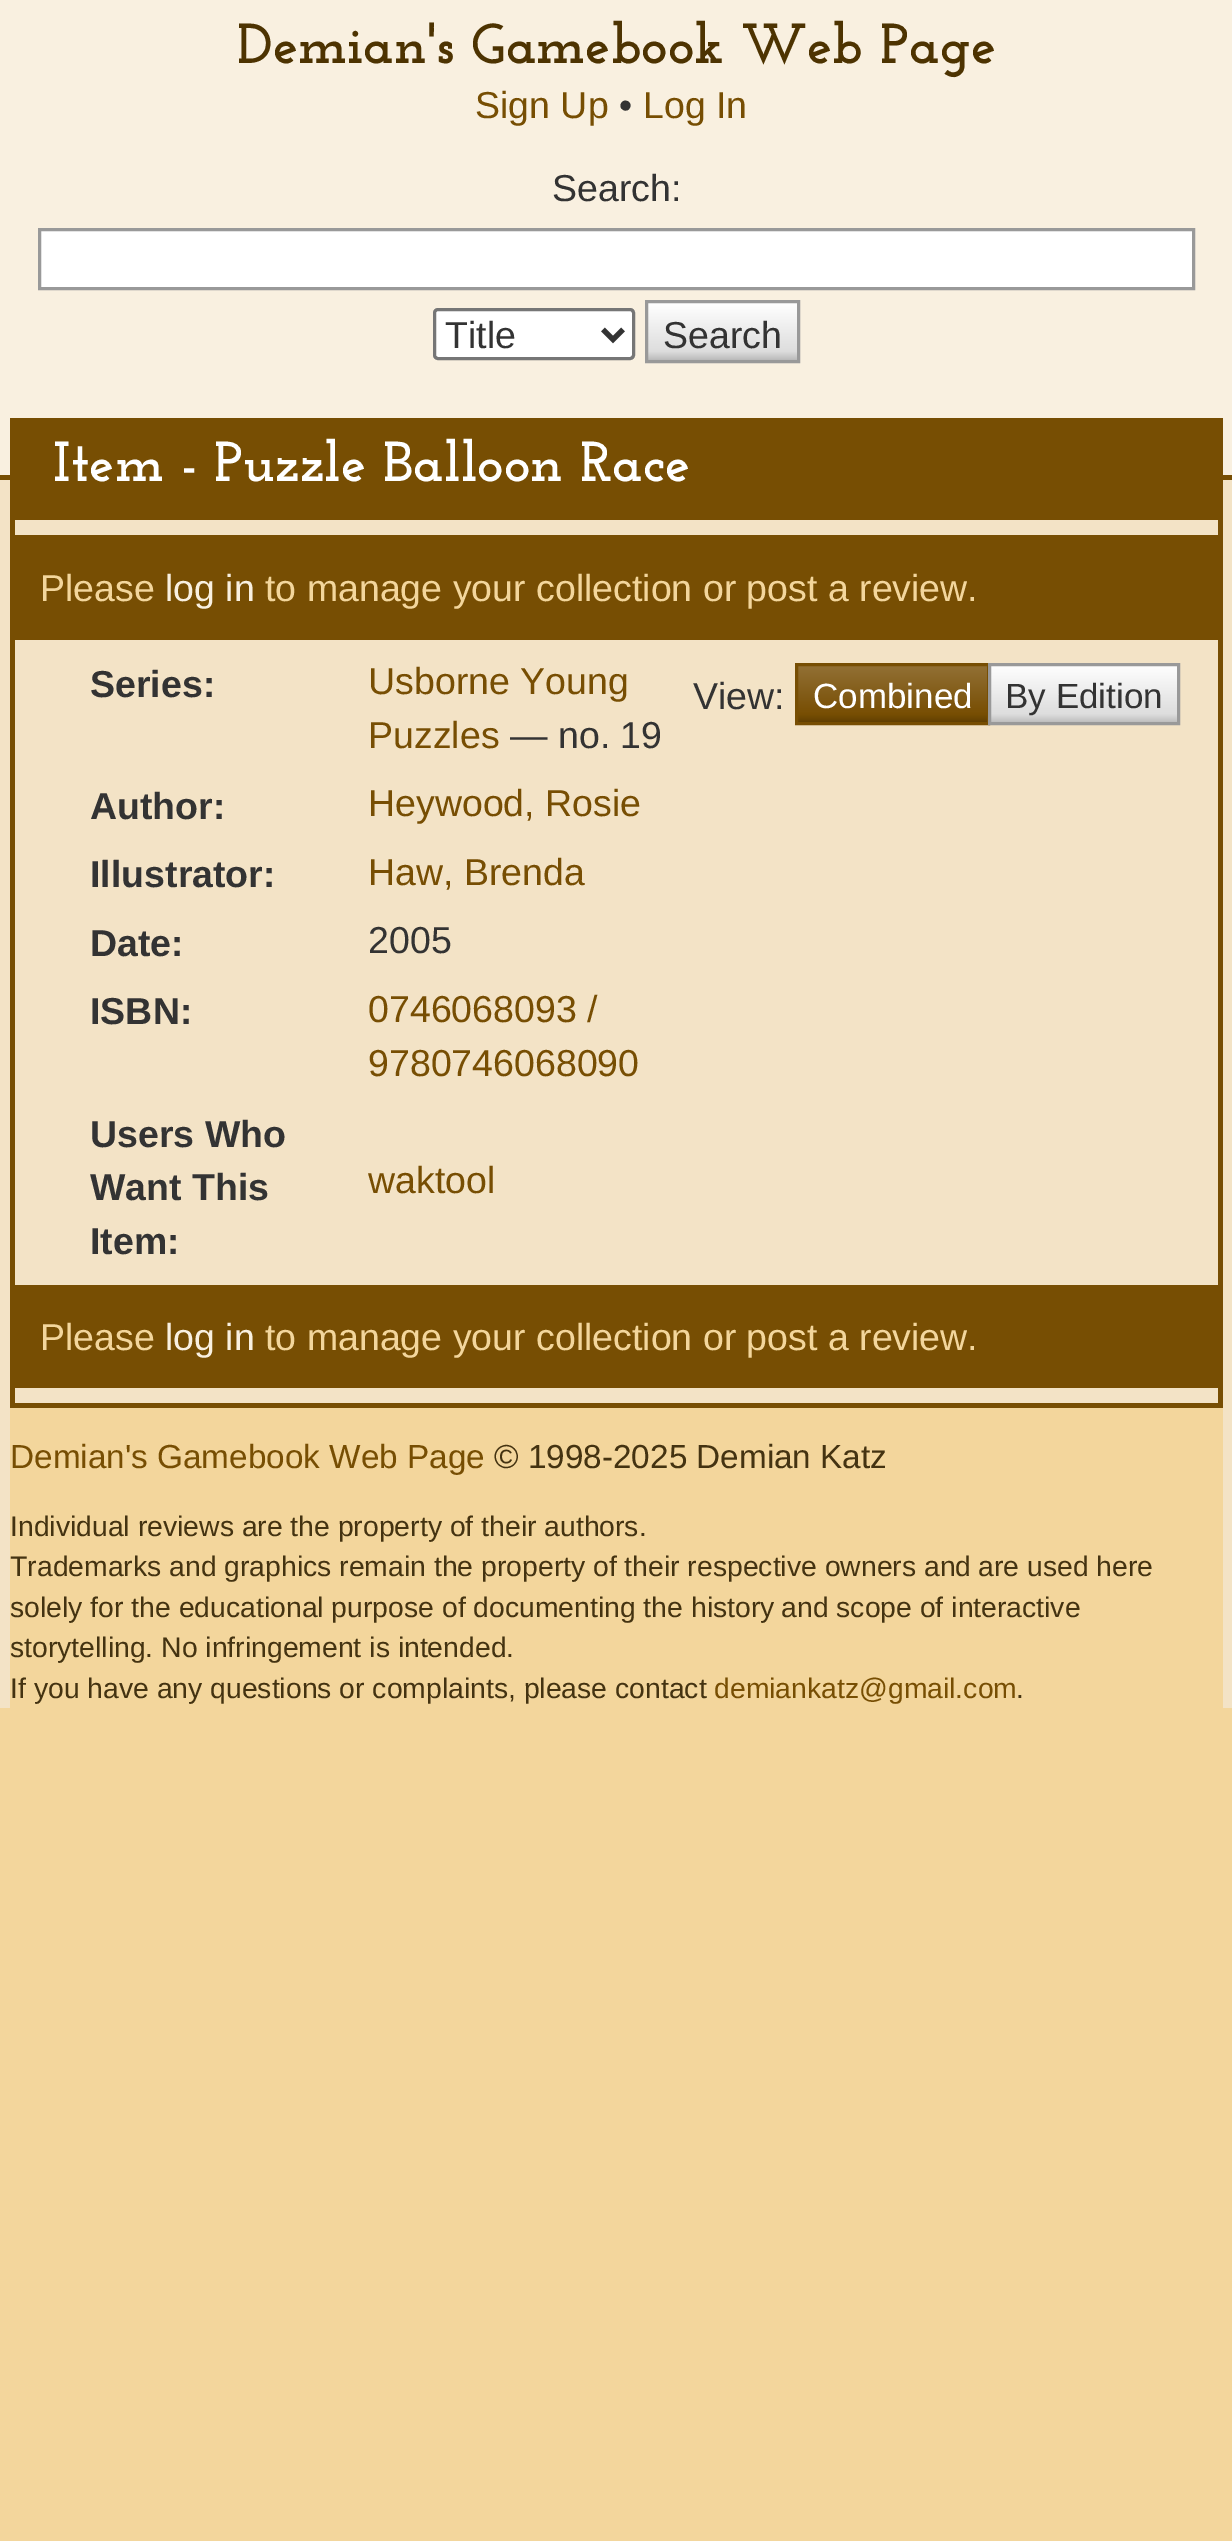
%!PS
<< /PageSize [1232 2541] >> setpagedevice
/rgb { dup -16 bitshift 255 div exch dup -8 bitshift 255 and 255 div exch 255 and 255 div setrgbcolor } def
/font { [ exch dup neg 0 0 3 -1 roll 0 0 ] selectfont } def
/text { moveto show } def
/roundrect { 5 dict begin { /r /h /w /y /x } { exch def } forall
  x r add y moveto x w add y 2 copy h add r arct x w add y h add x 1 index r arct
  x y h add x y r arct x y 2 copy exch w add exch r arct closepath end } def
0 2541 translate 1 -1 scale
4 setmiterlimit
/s1 { /JosefinSlab-Bold 56.25 font 16#4D3301 rgb } def
/s2 { /LiberationSans-Regular 37.5 font 16#774E03 rgb } def
/s3 { /LiberationSans-Regular 37.5 font 16#333333 rgb } def
/s4 { /JosefinSlab-Bold 56.25 font 16#FFFFFF rgb } def
/s5 { /LiberationSans-Regular 37.5 font 16#F3D69C rgb } def
/s6 { /LiberationSans-Regular 37.5 font 16#F9F0E0 rgb } def
/s7 { /LiberationSans-Bold 37.5 font 16#333333 rgb } def
/s8 { /LiberationSans-Regular 35 font 16#FFFFFF rgb } def
/s9 { /LiberationSans-Regular 35 font 16#333333 rgb } def
/s10 { /LiberationSans-Regular 33.3 font 16#774E03 rgb } def
/s11 { /LiberationSans-Regular 33.3 font 16#443311 rgb } def
/s12 { /LiberationSans-Regular 28.35 font 16#443311 rgb } def
/s13 { /LiberationSans-Regular 28.35 font 16#774E03 rgb } def
16#F3D69C rgb
0 0 1232 2541 rectfill
16#F9F0E0 rgb
0 0 1232 475 rectfill
16#774E03 rgb
0 475 1232 5 rectfill
s1
(Demian's Gamebook Web Page) 237 63 text
s2
(Sign Up) 475 118 text
s3
(•) 619 118 text
s2
(Log In) 643 118 text
s3
(Search:) 552 201 text
16#FFFFFF rgb
39.5 229.5 moveto 1193.5 229.5 lineto 1193.5 288.5 lineto 39.5 288.5 lineto closepath gsave fill grestore
16#999999 rgb
3 setlinewidth
stroke
16#FFFFFF rgb
434.5 309.5 199 49 3.5 roundrect gsave fill grestore
16#767676 rgb
stroke
16#333333 rgb
5 setlinewidth
603 329.5 moveto 613 339.5 lineto 623 329.5 lineto stroke
(Title) 445 348 text
gsave 648 303 moveto 797 303 lineto 797 360 lineto 648 360 lineto closepath clip newpath
<< /ShadingType 2 /ColorSpace /DeviceRGB /Coords [723 303 723 360] /Extend [true true] /Function << /FunctionType 3 /Domain [0 1] /Functions [<< /FunctionType 2 /Domain [0 1] /C0 [1 1 1] /C1 [0.867 0.867 0.867] /N 1 >> << /FunctionType 2 /Domain [0 1] /C0 [0.867 0.867 0.867] /C1 [0.733 0.733 0.733] /N 1 >>] /Bounds [0.85] /Encode [0 1 0 1] >> >> shfill grestore
16#999999 rgb
3 setlinewidth
646.5 301.5 152 60 rectstroke
s3
(Search) 663 348 text
16#F3E3C6 rgb
0 480 1232 1228 rectfill
16#774E03 rgb
10 418 1213 102 rectfill
s4
(Item - Puzzle Balloon Race) 53 481 text
16#774E03 rgb
1218 520 5 888 rectfill
10 1403 1213 5 rectfill
10 520 5 888 rectfill
15 535 1203 105 rectfill
s5
(Please) 40 601 text
s6
(log in) 165 601 text
s5
(to manage your collection or post a review.) 265 601 text
s7
(Series:) 90 697 text
s2
(Usborne Young) 368 694 text
(Puzzles) 368 748 text
s3
(— no. 19) 510 748 text
s7
(Author:) 90 819 text
s2
(Heywood, Rosie) 368 816 text
s7
(Illustrator:) 90 887 text
s2
(Haw, Brenda) 368 885 text
s7
(Date:) 90 956 text
s3
(2005) 368 953 text
s7
(ISBN:) 90 1024 text
s2
(0746068093 /) 368 1022 text
(9780746068090) 368 1076 text
s7
(Users Who) 90 1147 text
(Want This) 90 1200 text
(Item:) 90 1254 text
s2
(waktool) 368 1193 text
s3
(View:) 693 709 text
gsave 798 666 moveto 987 666 lineto 987 722 lineto 798 722 lineto closepath clip newpath
<< /ShadingType 2 /ColorSpace /DeviceRGB /Coords [893 665 893 723] /Extend [true true] /Function << /FunctionType 3 /Domain [0 1] /Functions [<< /FunctionType 2 /Domain [0 1] /C0 [0.573 0.443 0.208] /C1 [0.467 0.306 0.012] /N 1 >> << /FunctionType 2 /Domain [0 1] /C0 [0.467 0.306 0.012] /C1 [0.373 0.243 0.008] /N 1 >>] /Bounds [0.85] /Encode [0 1 0 1] >> >> shfill grestore
16#774E03 rgb
796.5 664.5 192 59 rectstroke
s8
(Combined) 813 708 text
gsave 991 666 moveto 1177 666 lineto 1177 722 lineto 991 722 lineto closepath clip newpath
<< /ShadingType 2 /ColorSpace /DeviceRGB /Coords [1084 665 1084 723] /Extend [true true] /Function << /FunctionType 3 /Domain [0 1] /Functions [<< /FunctionType 2 /Domain [0 1] /C0 [1 1 1] /C1 [0.867 0.867 0.867] /N 1 >> << /FunctionType 2 /Domain [0 1] /C0 [0.867 0.867 0.867] /C1 [0.733 0.733 0.733] /N 1 >>] /Bounds [0.85] /Encode [0 1 0 1] >> >> shfill grestore
16#999999 rgb
989.5 664.5 189 59 rectstroke
s9
(By Edition) 1005 708 text
16#774E03 rgb
15 1285 1203 103 rectfill
s5
(Please) 40 1350 text
s6
(log in) 165 1350 text
s5
(to manage your collection or post a review.) 265 1350 text
10 1408 1213 300 rectfill
s10
(Demian's Gamebook Web Page) 10 1468 text
s11
(© 1998-2025 Demian Katz) 494 1468 text
s12
(Individual reviews are the property of their authors.) 10 1536 text
(Trademarks and graphics remain the property of their respective owners and) 10 1576 text
(are used here) 978 1576 text
(solely for the educational purpose of documenting the history) 10 1617 text
(and scope of interactive) 781 1617 text
(storytelling. No infringement is intended.) 10 1657 text
(If you have any questions or complaints, please contact) 10 1698 text
s13
(demiankatz@gmail.com) 714 1698 text
s12
(.) 1016 1698 text
showpage
